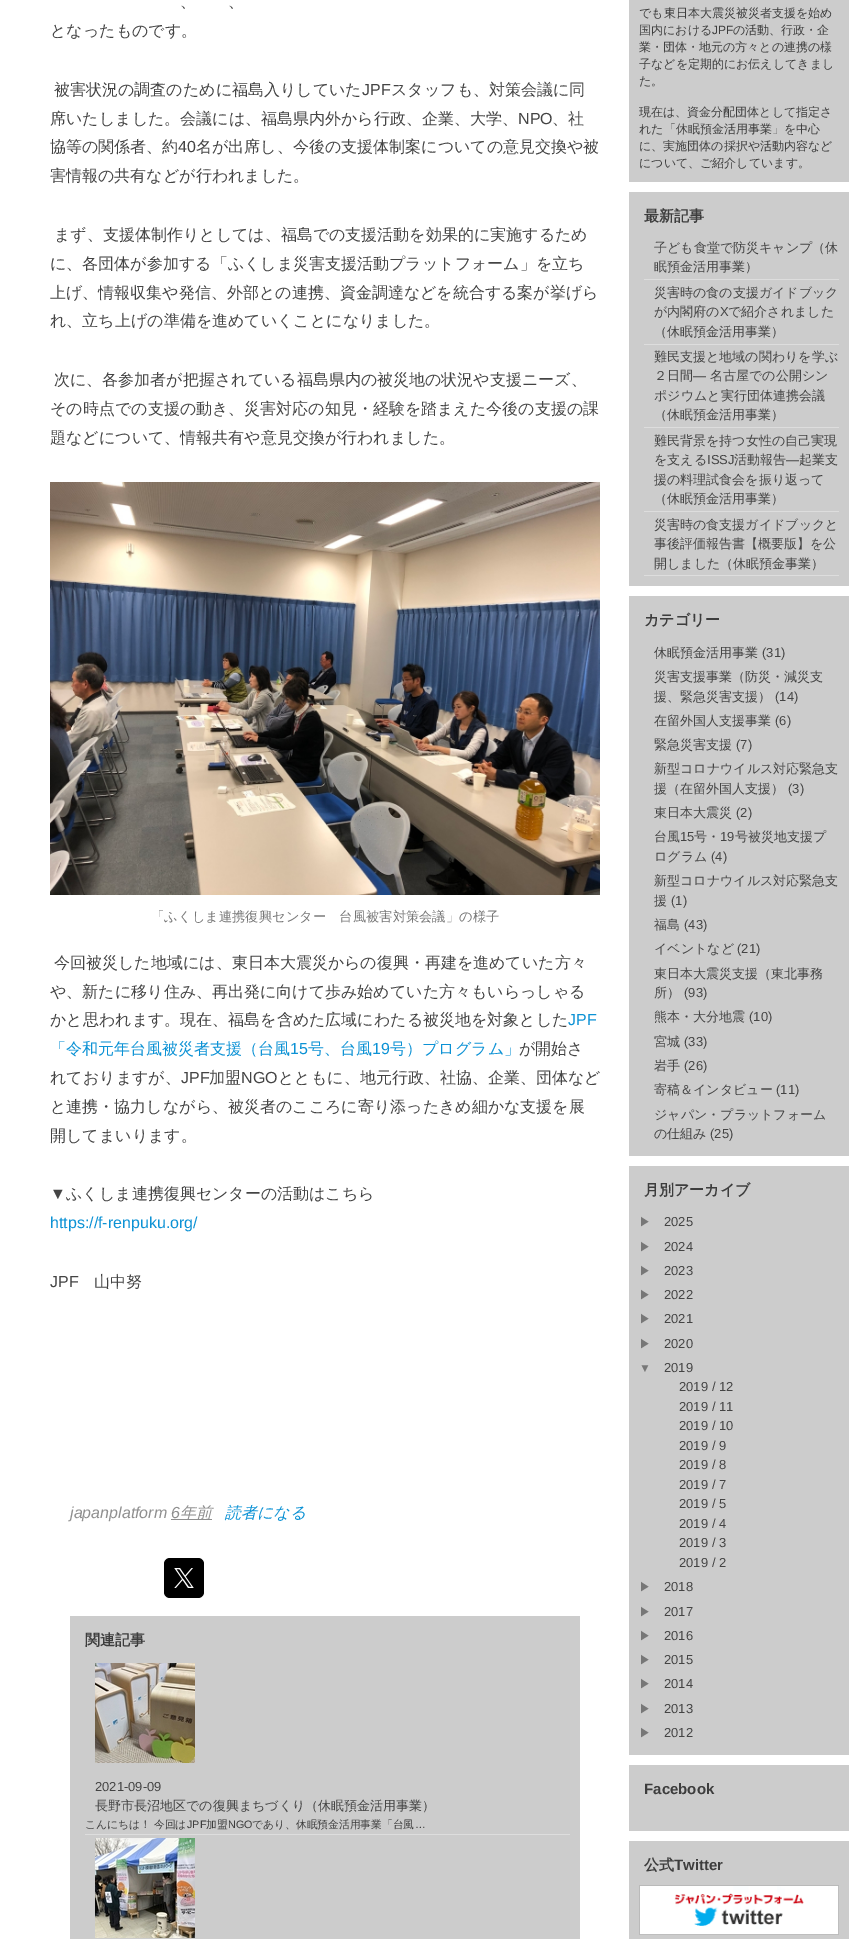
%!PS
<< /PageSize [857 1939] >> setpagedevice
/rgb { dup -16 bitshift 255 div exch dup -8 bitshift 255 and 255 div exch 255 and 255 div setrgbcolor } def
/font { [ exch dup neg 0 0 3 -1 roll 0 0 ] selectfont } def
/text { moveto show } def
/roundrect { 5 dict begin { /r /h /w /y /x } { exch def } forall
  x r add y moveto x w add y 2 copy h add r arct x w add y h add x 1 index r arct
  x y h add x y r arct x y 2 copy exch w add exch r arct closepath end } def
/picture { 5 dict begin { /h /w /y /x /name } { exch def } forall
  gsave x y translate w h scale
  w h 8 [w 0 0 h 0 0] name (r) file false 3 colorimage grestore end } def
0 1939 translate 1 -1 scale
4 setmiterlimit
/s1 { /WenQuanYiZenHei-Medium 16 font 16#444444 rgb } def
/s2 { /LiberationSans-Regular 16 font 16#444444 rgb } def
/s3 { /WenQuanYiZenHei-Medium 13.3 font 16#777777 rgb } def
/s4 { /LiberationSans-Regular 16 font 16#0C92D5 rgb } def
/s5 { /WenQuanYiZenHei-Medium 16 font 16#0C92D5 rgb } def
/s6 { /LiberationSans-Italic 16 font 16#8F8F8F rgb } def
/s7 { /WenQuanYiZenHei-MediumItalic 16 font 16#8F8F8F rgb } def
/s8 { /WenQuanYiZenHei-MediumItalic 16 font 16#0C92D5 rgb } def
/s9 { /WenQuanYiZenHei-Bold 15 font 16#3D3D3D rgb } def
/s10 { /LiberationSans-Regular 13 font 16#444444 rgb } def
/s11 { /WenQuanYiZenHei-Medium 13 font 16#444444 rgb } def
/s12 { /WenQuanYiZenHei-Medium 10.75 font 16#3D3D3D rgb } def
/s13 { /LiberationSans-Regular 10.75 font 16#3D3D3D rgb } def
/s14 { /WenQuanYiZenHei-Medium 12 font 16#3D3D3D rgb } def
/s15 { /LiberationSans-Regular 12 font 16#3D3D3D rgb } def
/s16 { /WenQuanYiZenHei-Medium 12 font 16#777777 rgb } def
/s17 { /LiberationSans-Regular 12 font 16#777777 rgb } def
/s18 { /LiberationSans-Bold 15 font 16#3D3D3D rgb } def
16#FFFFFF rgb
0 0 857 1939 rectfill
s1
(、) 180 7 text
(、) 228 7 text
(となったものです。) 50 36 text
(被害状況の調査のために福島入りしていた) 54 95 text
s2
(JPF) 362 95 text
s1
(スタッフも、対策会議に同) 391 95 text
(席いたしました。会議には、福島県内外から行政、企業、大学、) 50 124 text
s2
(NPO) 518 124 text
s1
(、社) 552 124 text
(協等の関係者、約) 50 152 text
s2
(40) 178 152 text
s1
(名が出席し、今後の支援体制案についての意見交換や被) 196 152 text
(害情報の共有などが行われました。) 50 181 text
(まず、支援体制作りとしては、福島での支援活動を効果的に実施するため) 54 240 text
(に、各団体が参加する「ふくしま災害支援活動プラットフォーム」を立ち) 50 269 text
(上げ、情報収集や発信、外部との連携、資金調達などを統合する案が挙げら) 50 298 text
(れ、立ち上げの準備を進めていくことになりました。) 50 326 text
(次に、各参加者が把握されている福島県内の被災地の状況や支援ニーズ、) 54 385 text
(その時点での支援の動き、災害対応の知見・経験を踏まえた今後の支援の課) 50 414 text
(題などについて、情報共有や意見交換が行われました。) 50 443 text
(pic1.raw) 50 482 550 413 picture
s3
(「ふくしま連携復興センター　台風被害対策会議」の様子) 151 921 text
s1
(今回被災した地域には、東日本大震災からの復興・再建を進めていた方々) 54 968 text
(や、新たに移り住み、再出発に向けて歩み始めていた方々もいらっしゃる) 50 997 text
(かと思われます。現在、福島を含めた広域にわたる被災地を対象とした) 50 1025 text
s4
(JPF) 568 1025 text
s5
(「令和元年台風被災者支援（台風) 50 1054 text
s4
(15) 290 1054 text
s5
(号、台風) 308 1054 text
s4
(19) 372 1054 text
s5
(号）プログラム」) 390 1054 text
s1
(が開始さ) 519 1054 text
(れておりますが、) 50 1083 text
s2
(JPF) 181 1083 text
s1
(加盟) 209 1083 text
s2
(NGO) 241 1083 text
s1
(とともに、地元行政、社協、企業、団体など) 278 1083 text
(と連携・協力しながら、被災者のこころに寄り添ったきめ細かな支援を展) 50 1112 text
(開してまいります。) 50 1141 text
s2
(▼) 50 1199 text
s1
(ふくしま連携復興センターの活動はこちら) 66 1199 text
s4
(https://f-renpuku.org/) 50 1228 text
s2
(JPF) 50 1287 text
s1
(山中努) 94 1287 text
s6
(japanplatform 6) 70 1518 text
171 1519 41 1 rectfill
s7
(年前) 180 1518 text
s8
(読者になる) 225 1518 text
16#000000 rgb
164 1558 40 40 6 roundrect fill
(pic2.raw) 174 1568 20 20 picture
16#CCCCCC rgb
70 1616 510 323 rectfill
s9
(関連記事) 85 1645 text
16#DDDDDD rgb
85 1834 485 1 rectfill
(pic3.raw) 95 1663 100 100 picture
s10
(2021-09-09) 95 1791 text
s11
(長野市長沼地区での復興まちづくり（休眠預金活用事業）) 95 1810 text
s12
(こんにちは！ 今回は) 85 1828 text
s13
(JPF) 187 1828 text
s12
(加盟) 206 1828 text
s13
(NGO) 228 1828 text
s12
(であり、休眠預金活用事業「台風) 252 1828 text
s13
(…) 415 1828 text
(pic4.raw) 95 1838 100 100 picture
16#CCCCCC rgb
629 0 220 182 rectfill
s14
(でも東日本大震災被災者支援を始め) 639 17 text
(国内における) 639 34 text
s15
(JPF) 712 34 text
s14
(の活動、行政・企) 733 34 text
(業・団体・地元の方々との連携の様) 639 51 text
(子などを定期的にお伝えしてきまし) 639 68 text
(た。) 639 85 text
(現在は、資金分配団体として指定さ) 639 116 text
(れた「休眠預金活用事業」を中心) 639 133 text
(に、実施団体の採択や活動内容など) 639 150 text
(について、ご紹介しています。) 639 167 text
16#CCCCCC rgb
629 192 220 394 rectfill
s9
(最新記事) 644 221 text
16#DDDDDD rgb
644 279 195 1 rectfill
s11
(子ども食堂で防災キャンプ（休) 654 252 text
(眠預金活用事業）) 654 271 text
16#DDDDDD rgb
644 344 195 1 rectfill
s11
(災害時の食の支援ガイドブック) 654 297 text
(が内閣府の) 654 316 text
s10
(X) 720 316 text
s11
(で紹介されました) 728 316 text
(（休眠預金活用事業）) 654 336 text
16#DDDDDD rgb
644 427 195 1 rectfill
s11
(難民支援と地域の関わりを学ぶ) 654 361 text
(２日間) 654 380 text
s10
(―) 693 380 text
s11
(名古屋での公開シン) 710 380 text
(ポジウムと実行団体連携会議) 654 400 text
(（休眠預金活用事業）) 654 419 text
16#DDDDDD rgb
644 511 195 1 rectfill
s11
(難民背景を持つ女性の自己実現) 654 445 text
(を支える) 654 464 text
s10
(ISSJ) 707 464 text
s11
(活動報告) 734 464 text
s10
(―) 786 464 text
s11
(起業支) 799 464 text
(援の料理試食会を振り返って) 654 484 text
(（休眠預金活用事業）) 654 503 text
16#DDDDDD rgb
644 575 195 1 rectfill
s11
(災害時の食支援ガイドブックと) 654 529 text
(事後評価報告書【概要版】を公) 654 548 text
(開しました（休眠預金事業）) 654 568 text
16#CCCCCC rgb
629 596 220 560 rectfill
s9
(カテゴリー) 644 625 text
s11
(休眠預金活用事業) 654 657 text
s10
(\(31\)) 762 657 text
s11
(災害支援事業（防災・減災支) 654 681 text
(援、緊急災害支援）) 654 701 text
s10
(\(14\)) 775 701 text
s11
(在留外国人支援事業) 654 725 text
s10
(\(6\)) 775 725 text
s11
(緊急災害支援) 654 749 text
s10
(\(7\)) 736 749 text
s11
(新型コロナウイルス対応緊急支) 654 773 text
(援（在留外国人支援）) 654 793 text
s10
(\(3\)) 788 793 text
s11
(東日本大震災) 654 817 text
s10
(\(2\)) 736 817 text
s11
(台風) 654 841 text
s10
(15) 680 841 text
s11
(号・) 694 841 text
s10
(19) 720 841 text
s11
(号被災地支援プ) 735 841 text
(ログラム) 654 861 text
s10
(\(4\)) 711 861 text
s11
(新型コロナウイルス対応緊急支) 654 885 text
(援) 654 905 text
s10
(\(1\)) 671 905 text
s11
(福島) 654 929 text
s10
(\(43\)) 684 929 text
s11
(イベントなど) 654 953 text
s10
(\(21\)) 737 953 text
s11
(東日本大震災支援（東北事務) 654 978 text
(所）) 654 997 text
s10
(\(93\)) 684 997 text
s11
(熊本・大分地震) 654 1021 text
s10
(\(10\)) 749 1021 text
s11
(宮城) 654 1046 text
s10
(\(33\)) 684 1046 text
s11
(岩手) 654 1070 text
s10
(\(26\)) 684 1070 text
s11
(寄稿＆インタビュー) 654 1094 text
s10
(\(11\)) 776 1094 text
s11
(ジャパン・プラットフォーム) 654 1119 text
(の仕組み) 654 1138 text
s10
(\(25\)) 710 1138 text
16#CCCCCC rgb
629 1166 220 589 rectfill
s9
(月別アーカイブ) 644 1195 text
s16
(▶) 639 1226 text
s10
(2025) 664 1226 text
s16
(▶) 639 1251 text
s10
(2024) 664 1251 text
s16
(▶) 639 1275 text
s10
(2023) 664 1275 text
s16
(▶) 639 1299 text
s10
(2022) 664 1299 text
s16
(▶) 639 1323 text
s10
(2021) 664 1323 text
s16
(▶) 639 1348 text
s10
(2020) 664 1348 text
s17
(▼) 639 1372 text
s10
(2019) 664 1372 text
(2019 / 12) 679 1391 text
(2019 / 11) 679 1411 text
(2019 / 10) 679 1430 text
(2019 / 9) 679 1450 text
(2019 / 8) 679 1469 text
(2019 / 7) 679 1489 text
(2019 / 5) 679 1508 text
(2019 / 4) 679 1528 text
(2019 / 3) 679 1547 text
(2019 / 2) 679 1567 text
s16
(▶) 639 1591 text
s10
(2018) 664 1591 text
s16
(▶) 639 1616 text
s10
(2017) 664 1616 text
s16
(▶) 639 1640 text
s10
(2016) 664 1640 text
s16
(▶) 639 1664 text
s10
(2015) 664 1664 text
s16
(▶) 639 1688 text
s10
(2014) 664 1688 text
s16
(▶) 639 1713 text
s10
(2013) 664 1713 text
s16
(▶) 639 1737 text
s10
(2012) 664 1737 text
16#CCCCCC rgb
629 1765 220 66 rectfill
s18
(Facebook) 644 1794 text
16#CCCCCC rgb
629 1841 220 98 rectfill
s9
(公式) 644 1870 text
s18
(Twitter) 674 1870 text
(pic5.raw) 639 1885 200 50 picture
showpage
